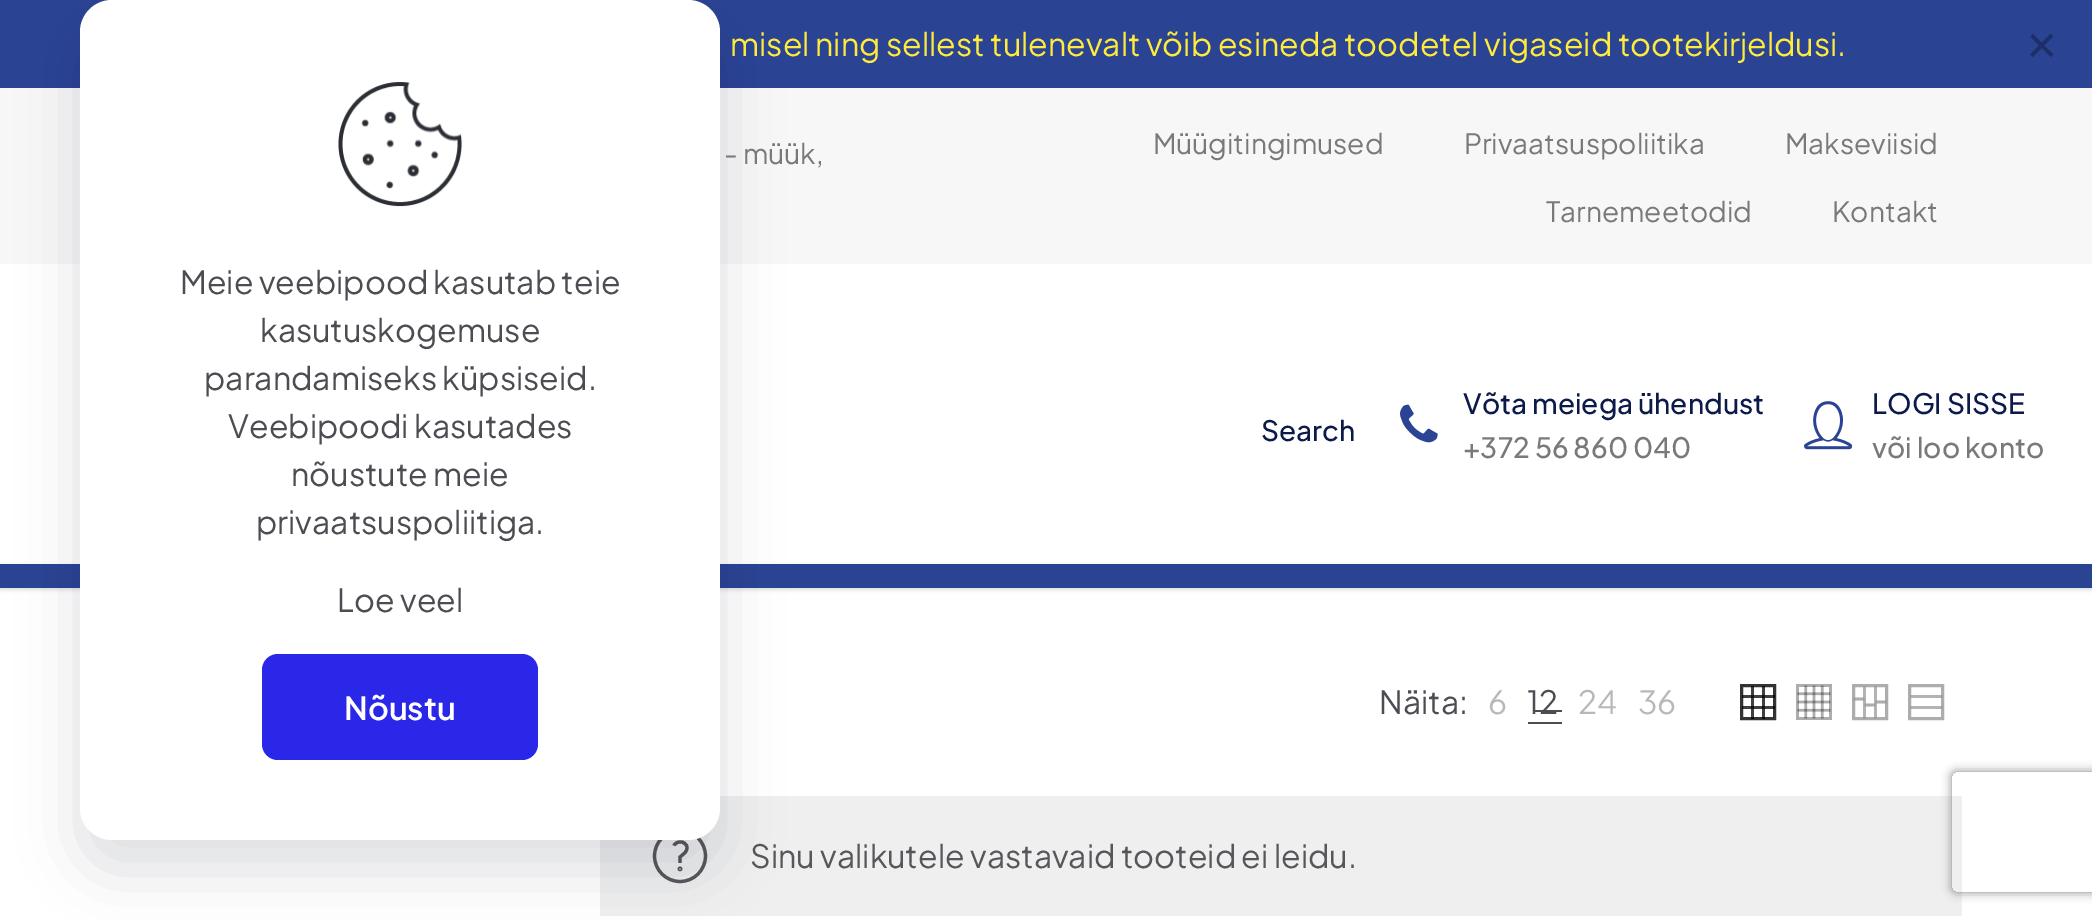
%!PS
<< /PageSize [2092 920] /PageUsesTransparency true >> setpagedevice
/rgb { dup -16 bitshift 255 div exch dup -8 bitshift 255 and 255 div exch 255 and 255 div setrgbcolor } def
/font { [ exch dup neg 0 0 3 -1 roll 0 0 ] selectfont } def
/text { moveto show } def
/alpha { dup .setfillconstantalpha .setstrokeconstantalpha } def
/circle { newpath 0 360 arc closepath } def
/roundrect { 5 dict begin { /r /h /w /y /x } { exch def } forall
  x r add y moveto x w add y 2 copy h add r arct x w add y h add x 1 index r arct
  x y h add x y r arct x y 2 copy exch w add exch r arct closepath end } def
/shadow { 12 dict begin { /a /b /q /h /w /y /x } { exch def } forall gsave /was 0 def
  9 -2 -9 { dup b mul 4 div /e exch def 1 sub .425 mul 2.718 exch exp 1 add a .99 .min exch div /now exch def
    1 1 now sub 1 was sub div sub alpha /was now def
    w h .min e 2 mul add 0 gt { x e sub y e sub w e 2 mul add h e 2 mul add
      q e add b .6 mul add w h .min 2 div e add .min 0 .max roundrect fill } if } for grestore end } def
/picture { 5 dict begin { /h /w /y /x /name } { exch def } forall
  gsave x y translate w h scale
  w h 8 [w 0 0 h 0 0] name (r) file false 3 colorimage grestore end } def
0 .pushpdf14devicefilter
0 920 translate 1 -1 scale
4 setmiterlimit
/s1 { /PlusJakartaSans-Regular 32 font 16#4C4D52 rgb } def
/s2 { /PlusJakartaSans-SemiBold 32 font 16#FFFFFF rgb } def
/s3 { /PlusJakartaSans-Regular 32 font 16#FFEB3B rgb } def
/s4 { /DejaVuSans-Regular 40 font 16#1D2F67 rgb } def
/s5 { /PlusJakartaSans-Regular 28 font 16#797979 rgb } def
/s6 { /PlusJakartaSans-Medium 28 font 16#0B1A48 rgb } def
/s7 { /PlusJakartaSans-Medium 28 font 16#797979 rgb } def
/s8 { /PlusJakartaSans-Regular 32 font 16#B7B8BA rgb } def
/s9 { /PlusJakartaSans-Regular 32 font 16#57575B rgb } def
16#FFFFFF rgb
0 0 2092 920 rectfill
16#2A4393 rgb
0 0 2092 88 rectfill
16#F7F7F7 rgb
0 88 2092 176 rectfill
16#000000 rgb
0 566 2092 24 0 2 0.12 shadow
16#2A4393 rgb
0 564 2092 24 rectfill
16#EFEFEF rgb
600 796 1362 120 rectfill
16#57575B rgb
3.2 setlinewidth
680 856 25.5 circle stroke
674 845.5 moveto 675.5 842.5 679 841.5 682 842 curveto 684 842.5 685.5 844 686.5 845.5 curveto 688 849 686 852 683.5 854 curveto 680 857 lineto 680 863 lineto stroke
680 868.9 0.7 circle stroke
16#010727 rgb
80 30 640 840 32 30 0.13 shadow
16#FFFFFF rgb
80 0 640 840 32 roundrect fill
(pic1.raw) 338 82 125 125 picture
s1
(Meie veebipood kasutab teie) 180 294 text
(kasutuskogemuse) 260 342 text
(parandamiseks küpsiseid.) 204 390 text
(Veebipoodi kasutades) 228 438 text
(nõustute meie) 291 486 text
(privaatsuspoliitiga.) 256 534 text
(Loe veel) 337 612 text
16#2A27E9 rgb
262 654 276 106 16 roundrect fill
s2
(Nõustu) 344 720 text
s3
(misel ning sellest tulenevalt võib esineda toodetel vigaseid tootekirjeldusi.) 730 56 text
s4
(✕) 2025 60 text
s5
(- müük,) 724 164 text
(Müügitingimused) 1153 154 text
(Privaatsuspoliitika) 1464 154 text
(Makseviisid) 1785 154 text
(Tarnemeetodid) 1546 222 text
(Kontakt) 1832 222 text
s6
(Search) 1261 441 text
(pic2.raw) 1400 404 38 39 picture
(Võta meiega ühendust) 1463 414 text
s7
(+372 56 860 040) 1463 458 text
(pic3.raw) 1804 401 49 49 picture
s6
(LOGI SISSE) 1872 414 text
s7
(või loo konto) 1872 458 text
s1
(Näita:) 1379 714 text
s8
(6) 1488 714 text
16#4C4D52 rgb
1534 710 28 2 rectfill
(12) 1527 714 text
1528 722 34 2 rectfill
s8
(24) 1578 714 text
(36) 1638 714 text
16#414141 rgb
1751 686 3 33 rectfill
1762 686 3 33 rectfill
0.8 alpha
16#000000 rgb
3 setlinewidth
1741.5 685.5 33 33 rectstroke
0.75 alpha
1742 695 33 3 rectfill
1742 706 33 3 rectfill
1 alpha
(pic4.raw) 1796 684 36 36 picture
16#ADADAD rgb
2.8 setlinewidth
1853.5 699 moveto 1864.5 699 lineto 1864.5 705 moveto 1875.5 705 lineto stroke
0.8 alpha
16#999999 rgb
3 setlinewidth
1853.5 685.5 33 33 rectstroke
2.8 setlinewidth
1875.5 702 moveto 1886.5 702 lineto stroke
0.75 alpha
1863 686 3 33 rectfill
1874 686 3 33 rectfill
1 alpha
16#ADADAD rgb
3 setlinewidth
1909.5 685.5 33 33 rectstroke
0.75 alpha
16#999999 rgb
1910 695 33 3 rectfill
1910 706 33 3 rectfill
1 alpha
s9
(Sinu valikutele vastavaid tooteid ei leidu.) 750 868 text
gsave
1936 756 moveto 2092 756 lineto 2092 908 lineto 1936 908 lineto closepath 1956 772 moveto 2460 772 lineto 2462 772 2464 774 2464 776 curveto 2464 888 lineto 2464 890 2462 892 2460 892 curveto 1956 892 lineto 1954 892 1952 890 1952 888 curveto 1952 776 lineto 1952 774 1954 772 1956 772 curveto closepath eoclip newpath
16#808080 rgb
1952 772 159 120 4 5 1 shadow
grestore
.poppdf14devicefilter showpage
